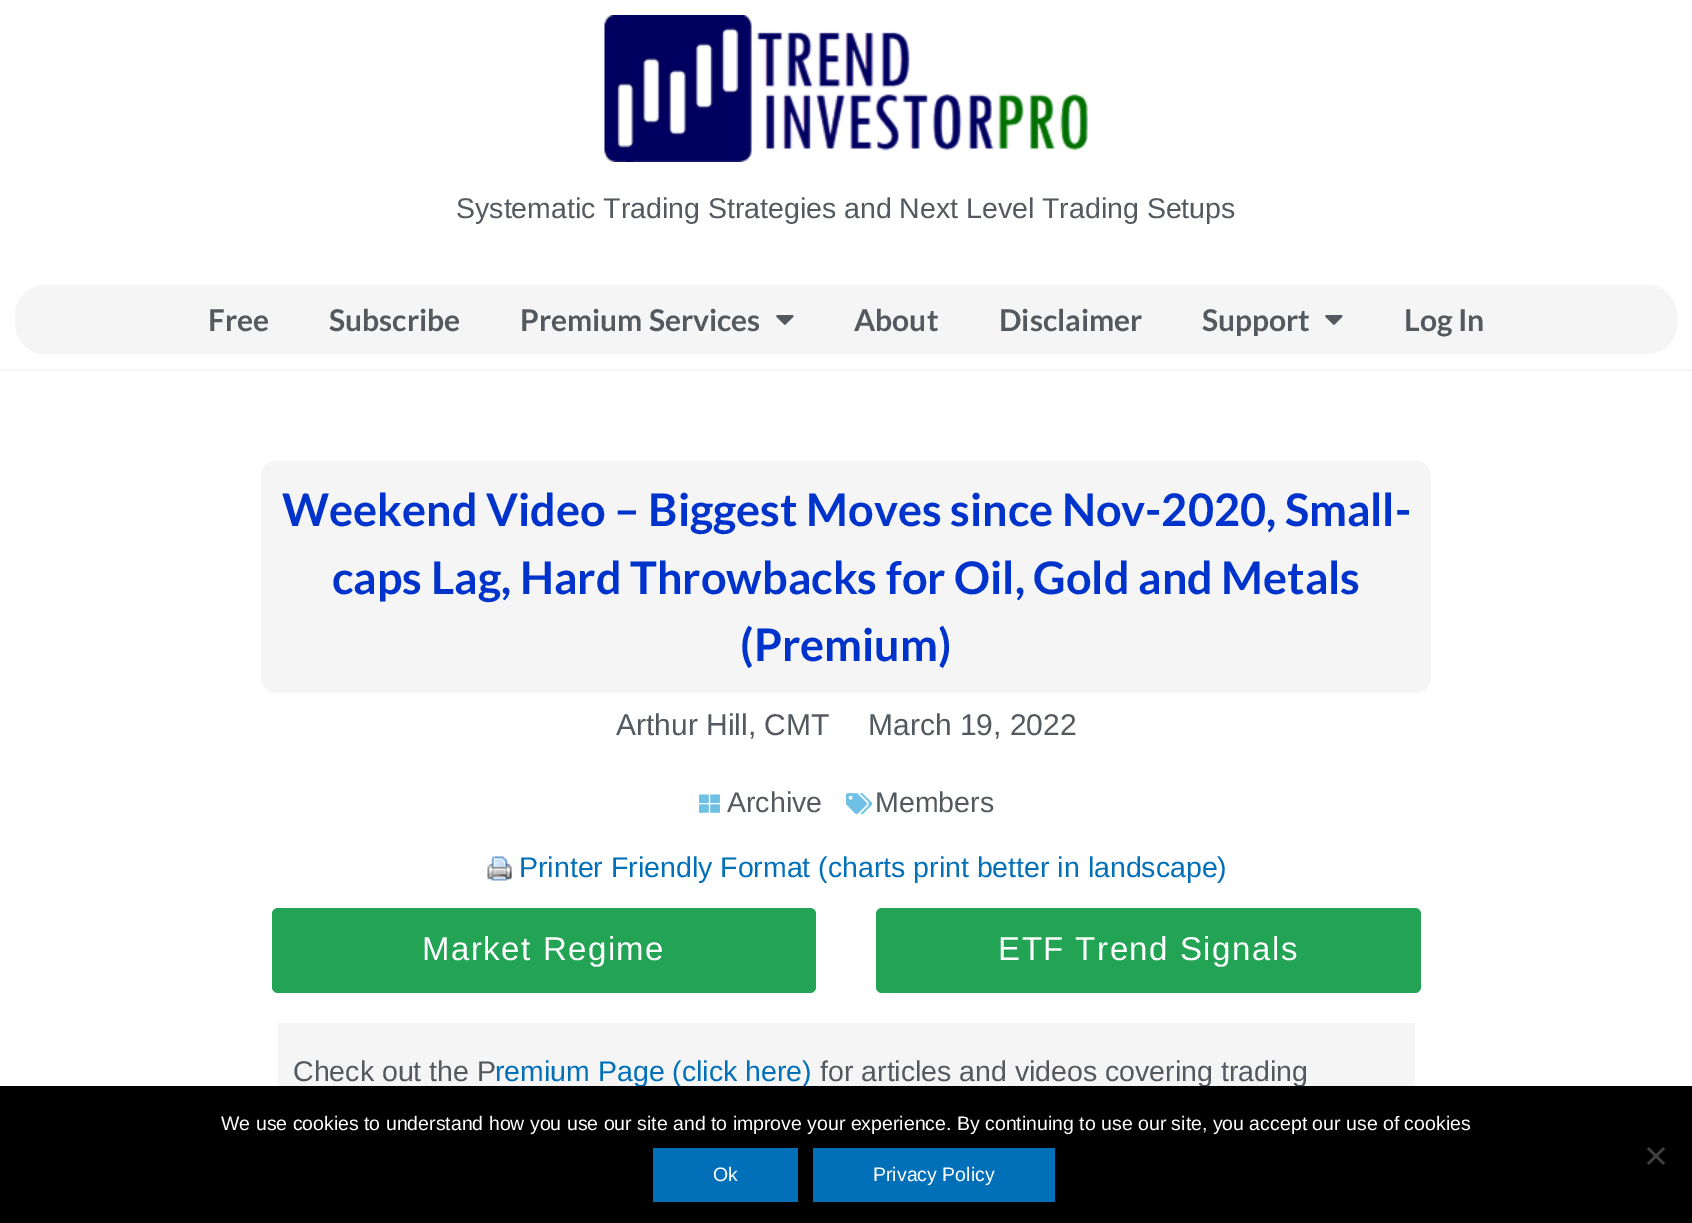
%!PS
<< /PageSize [1692 1223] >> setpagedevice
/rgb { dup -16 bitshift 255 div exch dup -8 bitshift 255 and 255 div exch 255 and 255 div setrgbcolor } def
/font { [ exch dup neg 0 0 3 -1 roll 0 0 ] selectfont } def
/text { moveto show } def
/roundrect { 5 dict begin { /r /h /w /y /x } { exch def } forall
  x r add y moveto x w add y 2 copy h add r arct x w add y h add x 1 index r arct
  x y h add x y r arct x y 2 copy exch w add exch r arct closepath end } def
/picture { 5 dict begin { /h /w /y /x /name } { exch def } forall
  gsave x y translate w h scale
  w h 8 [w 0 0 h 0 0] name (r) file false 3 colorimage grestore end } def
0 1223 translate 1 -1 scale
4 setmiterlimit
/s1 { /LiberationSans-Regular 28.5 font 16#54595F rgb } def
/s2 { /Lato-Bold 30 font 16#54595F rgb } def
/s3 { /Lato-Bold 45 font 16#0033CC rgb } def
/s4 { /LiberationSans-Regular 30 font 16#54595F rgb } def
/s5 { /LiberationSans-Regular 28.5 font 16#0170B9 rgb } def
/s6 { /LiberationSans-Regular 19.5 font 16#FFFFFF rgb } def
16#FFFFFF rgb
0 0 1692 1223 rectfill
16#F5F5F5 rgb
0 369 1692 2 rectfill
(pic1.raw) 604 15 484 147 picture
s1
(Systematic Trading Strategies and Next Level Trading Setups) 456 218 text
16#F5F5F5 rgb
15 285 1662 69 30 roundrect fill
s2
(Free) 208 331 text
(Subscribe) 329 331 text
(Premium Services) 520 331 text
(pic2.raw) 776 315 18 10 picture
(About) 854 331 text
(Disclaimer) 999 331 text
(Support) 1202 331 text
(pic2.raw) 1325 315 18 10 picture
(Log In) 1404 331 text
16#F5F5F5 rgb
261 461 1170 232 15 roundrect fill
s3
(Weekend Video – Biggest Moves since Nov-2020, Small-) 282 526 text
(caps Lag, Hard Throwbacks for Oil, Gold and Metals) 332 594 text
(\(Premium\)) 740 661 text
s4
(Arthur Hill, CMT) 616 735 text
(March 19, 2022) 868 735 text
(pic3.raw) 699 794 21 19 picture
s1
(Archive) 727 812 text
(pic4.raw) 846 793 27 22 picture
(Members) 875 812 text
(pic5.raw) 487 856 25 25 picture
s5
(Printer Friendly Format \(charts print better in landscape\)) 519 877 text
16#23A455 rgb
272 908 544 85 6 roundrect fill
/LiberationSans-Regular 33 font
16#FFFFFF rgb
422 960 moveto 1.5 0 (Market Regime) ashow
16#23A455 rgb
876 908 545 85 6 roundrect fill
16#FFFFFF rgb
998 960 moveto 1.5 0 (ETF Trend Signals) ashow
16#F5F5F5 rgb
278 1023 1137 63 rectfill
s1
(Check out the P) 293 1081 text
s5
(remium Page \(click here\)) 495 1081 text
s1
(for articles and videos covering trading) 820 1081 text
16#000000 rgb
0 1086 1692 137 rectfill
s6
(We use cookies to understand how you use our site and to improve your experience. By continuing to use our site, you accept our use of cookies) 221 1130 text
16#404040 rgb
1663 1147 moveto 1665 1149 lineto 1649 1165 lineto 1647 1163 lineto closepath fill
1647 1149 moveto 1649 1147 lineto 1665 1163 lineto 1663 1165 lineto closepath fill
16#0170B9 rgb
653 1148 145 54 rectfill
s6
(Ok) 713 1181 text
16#0170B9 rgb
813 1148 242 54 rectfill
s6
(Privacy Policy) 873 1181 text
showpage
